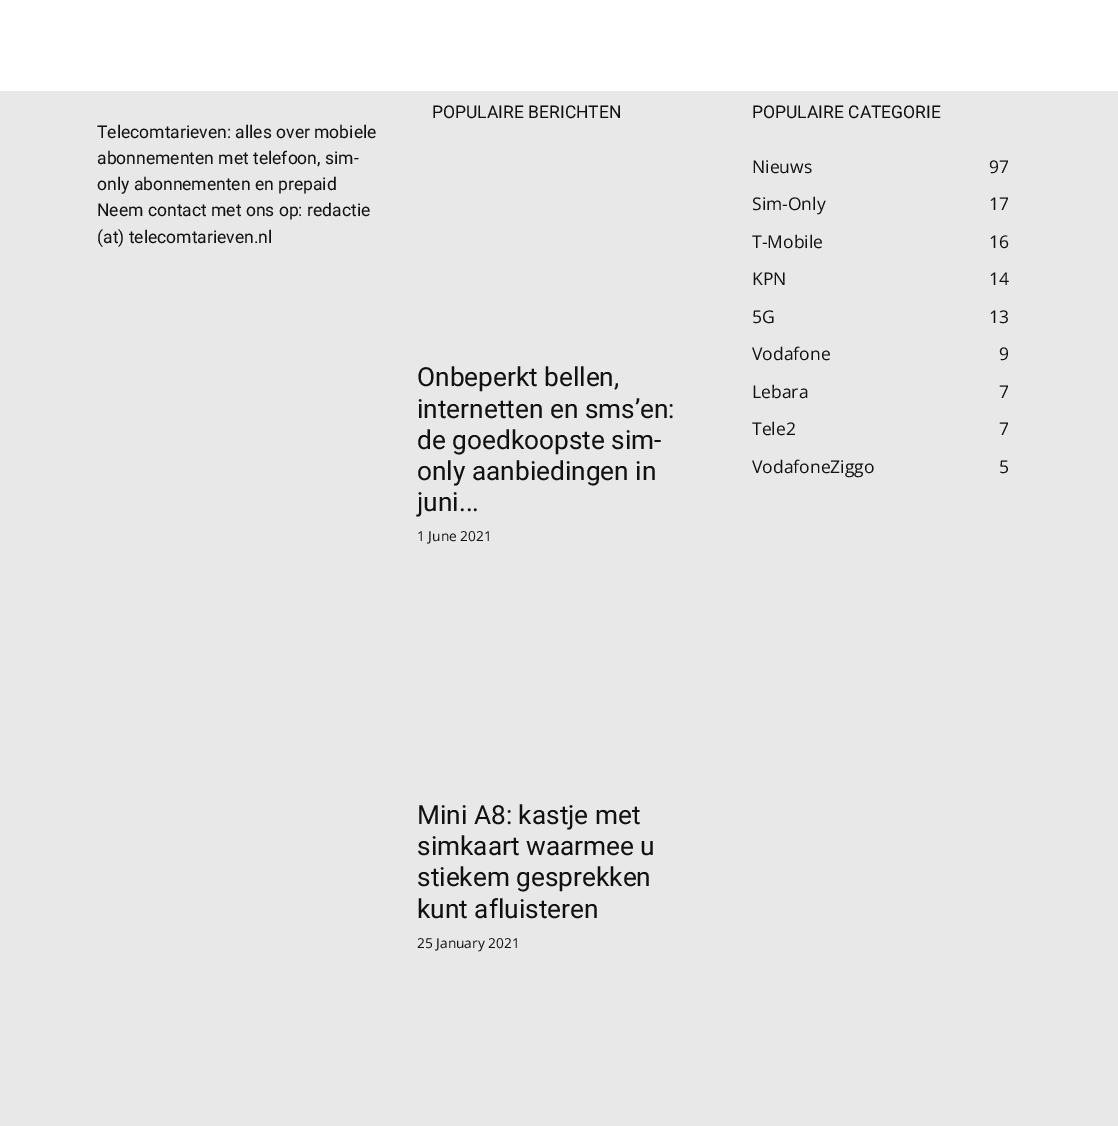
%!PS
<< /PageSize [1118 1126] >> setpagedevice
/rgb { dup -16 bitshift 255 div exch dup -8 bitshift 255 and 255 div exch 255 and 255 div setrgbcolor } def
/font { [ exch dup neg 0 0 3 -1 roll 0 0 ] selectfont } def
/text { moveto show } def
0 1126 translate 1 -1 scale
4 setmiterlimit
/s1 { /Roboto-Regular 17.5 font 16#111111 rgb } def
/s2 { /Roboto-Regular 26.25 font 16#111111 rgb } def
/s3 { /OpenSans-Regular 13.75 font 16#111111 rgb } def
/s4 { /OpenSans-Regular 17.5 font 16#111111 rgb } def
16#FFFFFF rgb
0 0 1118 1126 rectfill
16#E8E8E8 rgb
0 91 1118 1035 rectfill
s1
(Telecomtarieven: alles over mobiele) 97 138 text
(abonnementen met telefoon, sim-) 97 164 text
(only abonnementen en prepaid) 97 190 text
(Neem contact met ons op: redactie) 97 216 text
(\(at\) telecomtarieven.nl) 97 243 text
(POPULAIRE BERICHTEN) 432 118 text
s2
(Onbeperkt bellen,) 417 386 text
(internetten en sms’en:) 417 418 text
(de goedkoopste sim-) 417 449 text
(only aanbiedingen in) 417 480 text
(juni...) 417 511 text
s3
(1 June 2021) 417 541 text
s2
(Mini A8: kastje met) 417 824 text
(simkaart waarmee u) 417 855 text
(stiekem gesprekken) 417 886 text
(kunt afluisteren) 417 918 text
s3
(25 January 2021) 417 948 text
s1
(POPULAIRE CATEGORIE) 752 118 text
s4
(Nieuws) 752 173 text
(97) 989 173 text
(Sim-Only) 752 210 text
(17) 989 210 text
(T-Mobile) 752 248 text
(16) 989 248 text
(KPN) 752 285 text
(14) 989 285 text
(5G) 752 323 text
(13) 989 323 text
(Vodafone) 752 360 text
(9) 999 360 text
(Lebara) 752 398 text
(7) 999 398 text
(Tele2) 752 435 text
(7) 999 435 text
(VodafoneZiggo) 752 473 text
(5) 999 473 text
showpage
